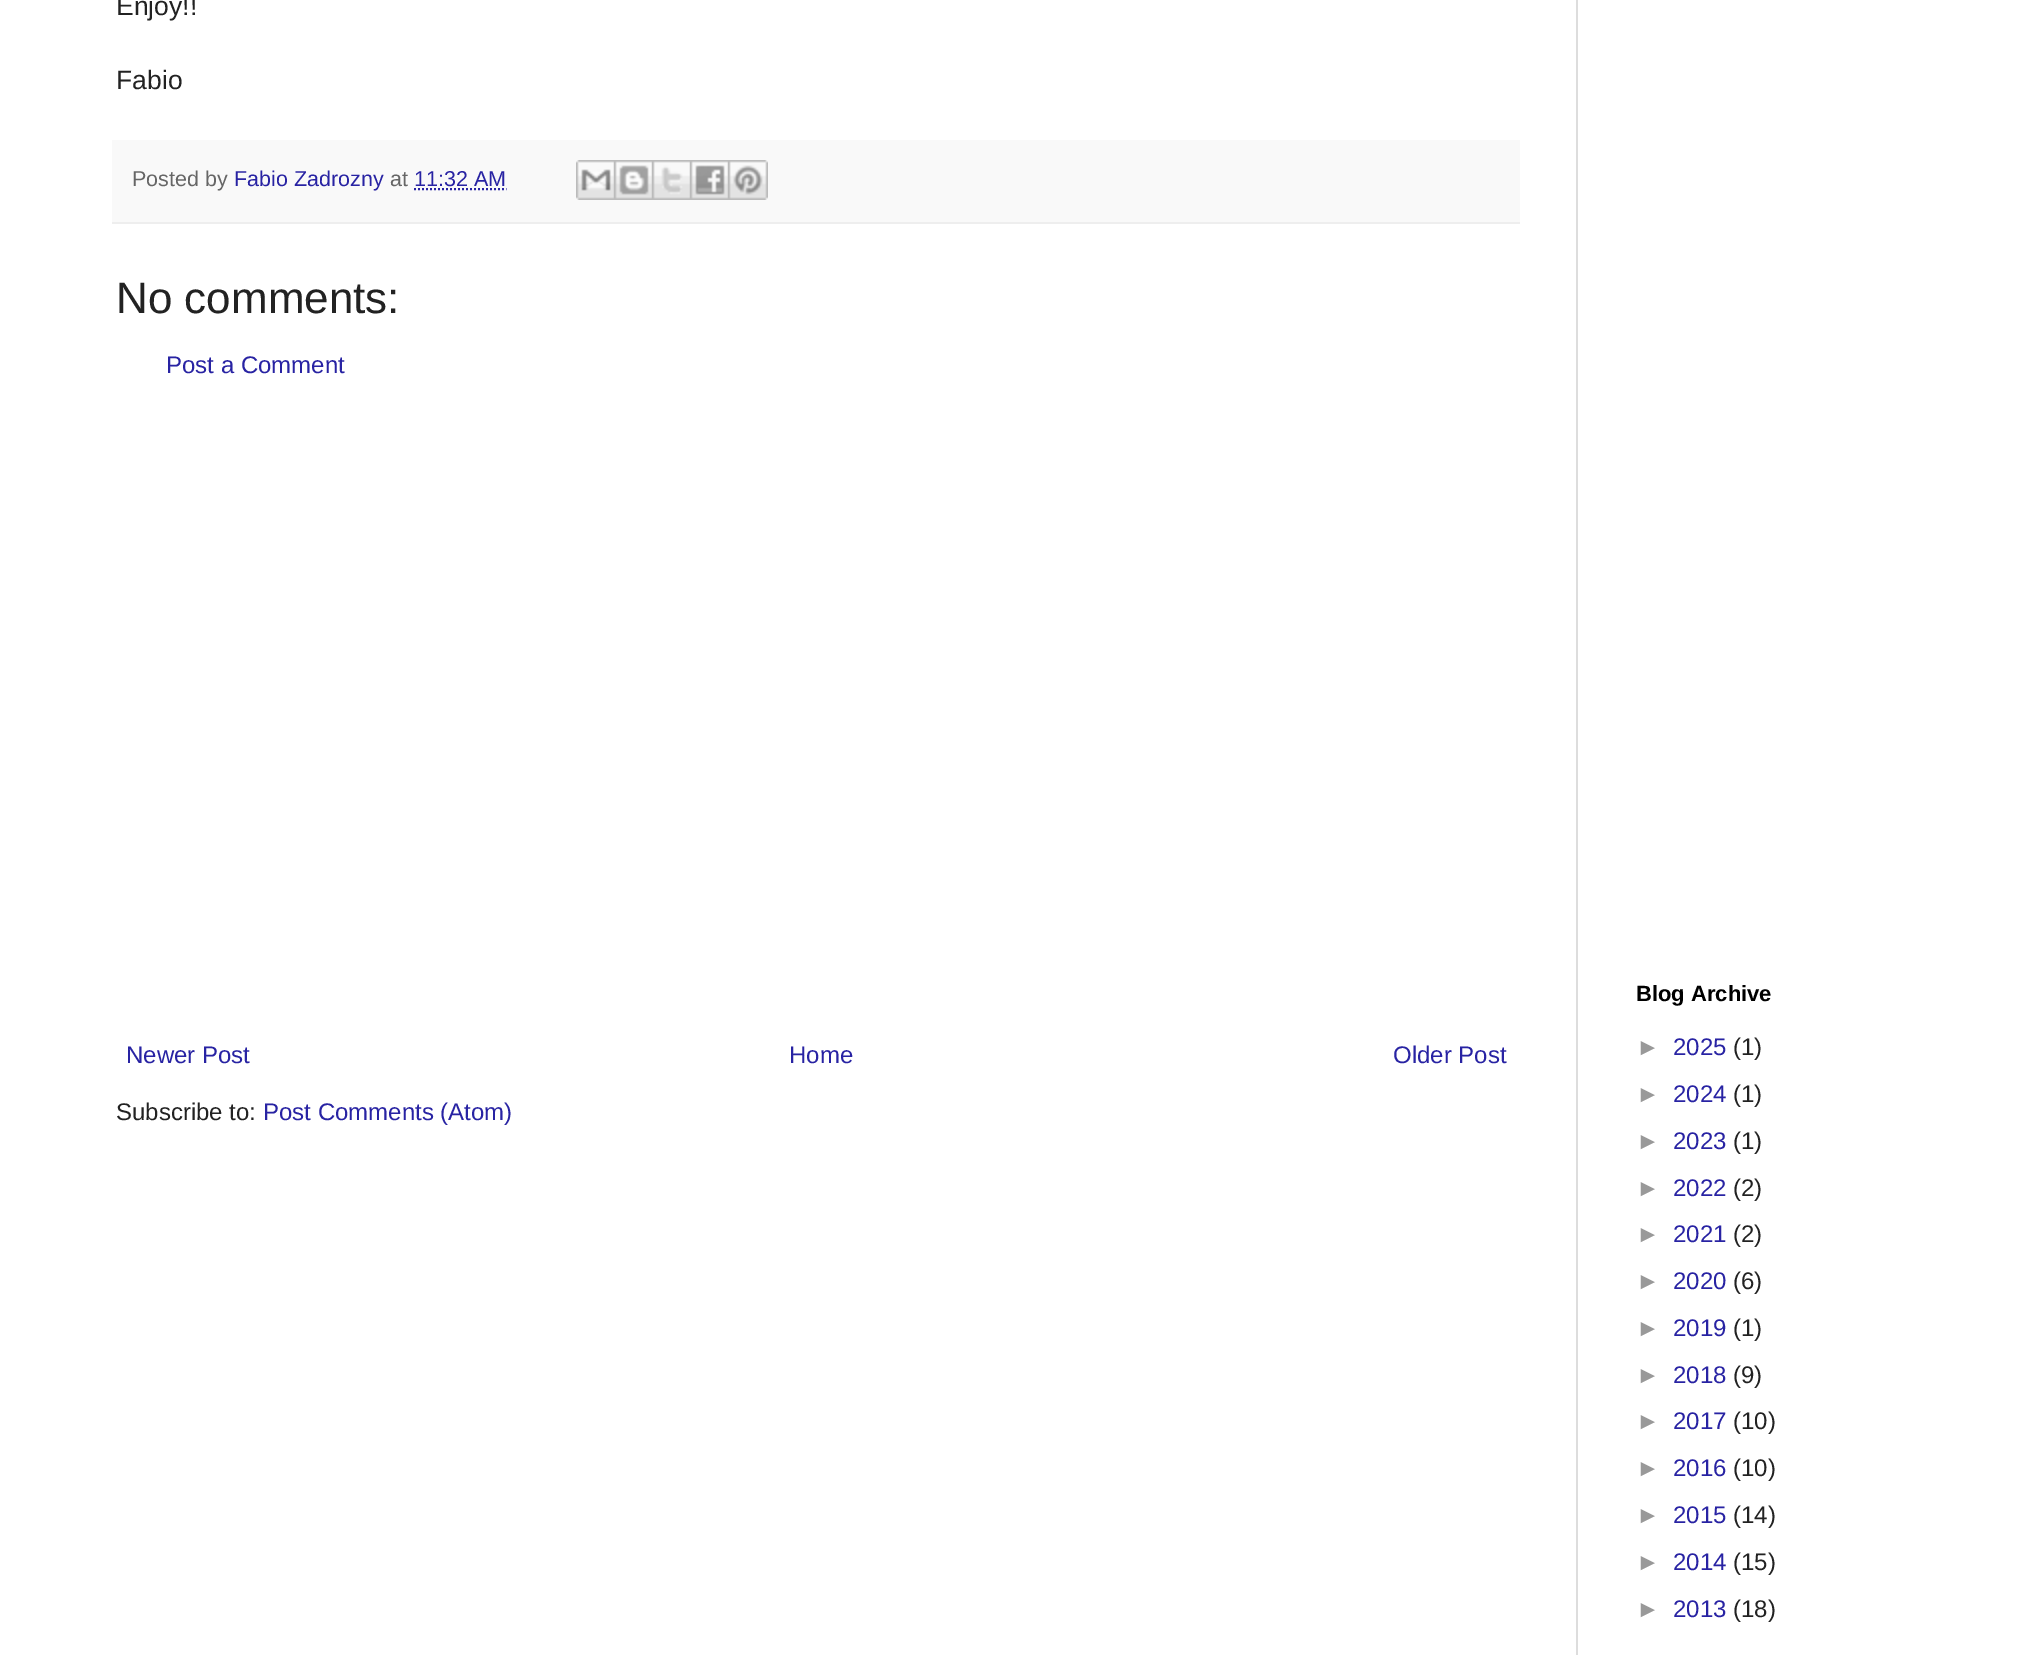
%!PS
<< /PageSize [2031 1655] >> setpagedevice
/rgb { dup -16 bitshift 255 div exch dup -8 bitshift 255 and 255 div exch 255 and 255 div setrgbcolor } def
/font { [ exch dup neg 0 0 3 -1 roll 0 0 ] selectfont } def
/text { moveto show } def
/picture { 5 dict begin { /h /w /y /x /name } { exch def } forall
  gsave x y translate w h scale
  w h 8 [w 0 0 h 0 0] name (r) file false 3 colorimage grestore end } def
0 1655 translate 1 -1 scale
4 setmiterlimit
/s1 { /LiberationSans-Regular 26.5 font 16#222222 rgb } def
/s2 { /LiberationSans-Regular 21.5 font 16#666666 rgb } def
/s3 { /LiberationSans-Regular 21.5 font 16#2823A3 rgb } def
/s4 { /LiberationSans-Regular 44 font 16#222222 rgb } def
/s5 { /LiberationSans-Regular 24 font 16#2823A3 rgb } def
/s6 { /LiberationSans-Regular 24 font 16#222222 rgb } def
/s7 { /LiberationSans-Bold 22 font 16#000000 rgb } def
/s8 { /LiberationSans-Regular 24 font 16#999999 rgb } def
16#FFFFFF rgb
0 0 2031 1655 rectfill
s1
(Enjoy!!) 116 15 text
(Fabio) 116 89 text
16#F9F9F9 rgb
112 140 1408 82 rectfill
16#EEEEEE rgb
112 222 1408 2 rectfill
s2
(Posted by) 132 186 text
s3
(Fabio Zadrozny) 234 186 text
s2
(at) 390 186 text
s3
(11:32 AM) 414 186 text
2 setlinewidth
[2 2] 0 setdash
414 189 moveto 506.5 189 lineto stroke
(pic1.raw) 576 160 38 40 picture
(pic2.raw) 614 160 38 40 picture
(pic3.raw) 652 160 38 40 picture
(pic4.raw) 690 160 38 40 picture
(pic5.raw) 728 160 40 40 picture
s4
(No comments:) 116 313 text
s5
(Post a Comment) 166 373 text
(Newer Post) 126 1063 text
(Home) 789 1063 text
(Older Post) 1393 1063 text
s6
(Subscribe to:) 116 1120 text
s5
(Post Comments \(Atom\)) 263 1120 text
s7
(Blog Archive) 1636 1001 text
s8
(►) 1636 1055 text
s5
(2025) 1673 1055 text
s6
(\(1\)) 1733 1055 text
s8
(►) 1636 1102 text
s5
(2024) 1673 1102 text
s6
(\(1\)) 1733 1102 text
s8
(►) 1636 1149 text
s5
(2023) 1673 1149 text
s6
(\(1\)) 1733 1149 text
s8
(►) 1636 1196 text
s5
(2022) 1673 1196 text
s6
(\(2\)) 1733 1196 text
s8
(►) 1636 1242 text
s5
(2021) 1673 1242 text
s6
(\(2\)) 1733 1242 text
s8
(►) 1636 1289 text
s5
(2020) 1673 1289 text
s6
(\(6\)) 1733 1289 text
s8
(►) 1636 1336 text
s5
(2019) 1673 1336 text
s6
(\(1\)) 1733 1336 text
s8
(►) 1636 1383 text
s5
(2018) 1673 1383 text
s6
(\(9\)) 1733 1383 text
s8
(►) 1636 1429 text
s5
(2017) 1673 1429 text
s6
(\(10\)) 1733 1429 text
s8
(►) 1636 1476 text
s5
(2016) 1673 1476 text
s6
(\(10\)) 1733 1476 text
s8
(►) 1636 1523 text
s5
(2015) 1673 1523 text
s6
(\(14\)) 1733 1523 text
s8
(►) 1636 1570 text
s5
(2014) 1673 1570 text
s6
(\(15\)) 1733 1570 text
s8
(►) 1636 1617 text
s5
(2013) 1673 1617 text
s6
(\(18\)) 1733 1617 text
16#DDDDDD rgb
1576 0 2 1655 rectfill
showpage
